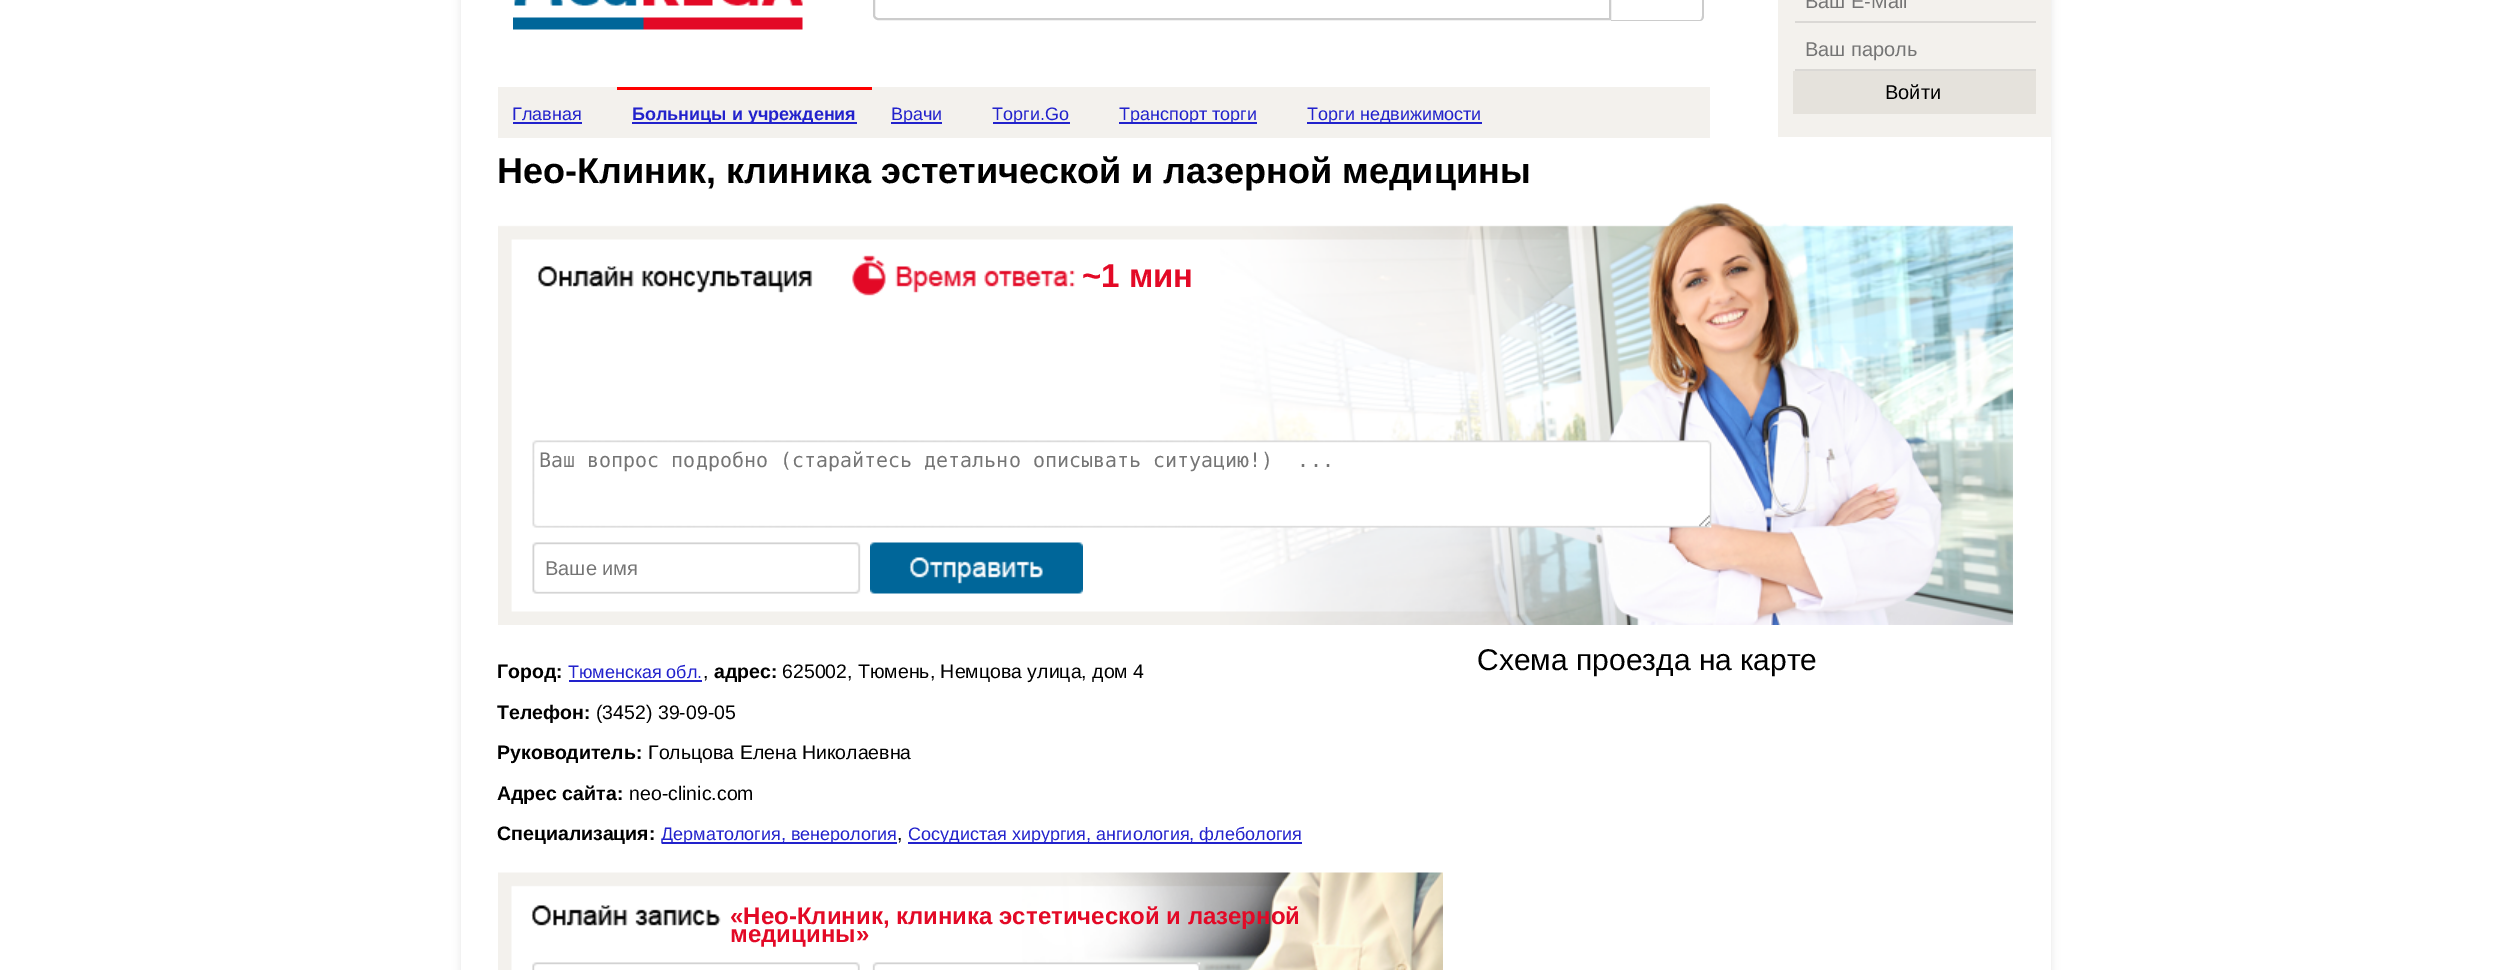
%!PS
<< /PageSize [2509 970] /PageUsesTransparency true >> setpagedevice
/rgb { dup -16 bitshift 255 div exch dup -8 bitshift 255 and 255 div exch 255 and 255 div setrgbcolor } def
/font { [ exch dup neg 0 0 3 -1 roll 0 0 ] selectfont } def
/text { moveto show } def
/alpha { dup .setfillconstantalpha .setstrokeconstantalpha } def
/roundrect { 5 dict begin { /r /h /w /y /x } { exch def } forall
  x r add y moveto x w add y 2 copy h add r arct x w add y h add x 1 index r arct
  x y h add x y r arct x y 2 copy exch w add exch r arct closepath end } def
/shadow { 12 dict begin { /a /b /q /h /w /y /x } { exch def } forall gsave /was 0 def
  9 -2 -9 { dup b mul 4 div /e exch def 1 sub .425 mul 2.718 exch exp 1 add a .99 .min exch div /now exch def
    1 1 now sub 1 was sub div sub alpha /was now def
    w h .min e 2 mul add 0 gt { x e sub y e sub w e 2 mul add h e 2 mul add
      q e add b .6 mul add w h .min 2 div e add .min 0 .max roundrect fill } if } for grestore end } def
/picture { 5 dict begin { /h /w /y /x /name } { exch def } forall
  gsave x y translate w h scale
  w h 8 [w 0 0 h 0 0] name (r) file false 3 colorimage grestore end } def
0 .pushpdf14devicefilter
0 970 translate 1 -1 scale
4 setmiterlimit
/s1 { /LiberationSans-Regular 20 font 16#757575 rgb } def
/s2 { /LiberationSans-Regular 20 font 16#000000 rgb } def
/s3 { /LiberationSans-Regular 18 font 16#2222CC rgb } def
/s4 { /LiberationSans-Bold 18 font 16#2222CC rgb } def
/s5 { /LiberationSans-Bold 36 font 16#000000 rgb } def
/s6 { /LiberationSans-Bold 33 font 16#E30926 rgb } def
/s7 { /DejaVuSansMono-Regular 20 font 16#757575 rgb } def
/s8 { /LiberationSans-Bold 19.5 font 16#000000 rgb } def
/s9 { /LiberationSans-Regular 19.5 font 16#000000 rgb } def
/s10 { /LiberationSans-Bold 24 font 16#E30926 rgb } def
/s11 { /LiberationSans-Regular 30 font 16#000000 rgb } def
16#FFFFFF rgb
0 0 2509 970 rectfill
16#000000 rgb
461 -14 1590 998 0 4.5 0.1 shadow
16#FFFFFF rgb
461 0 1590 970 rectfill
(pic1.raw) 513 0 290 30 picture
16#CCCCCC rgb
2 setlinewidth
878 -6 moveto 1610 -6 lineto 1610 19 lineto 878 19 lineto 876 19 874 17 874 15 curveto 874 -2 lineto 874 -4 876 -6 878 -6 curveto closepath stroke
1611 -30 moveto 1700 -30 lineto 1702 -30 1704 -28 1704 -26 curveto 1704 16 lineto 1704 19 1702 21 1700 21 curveto 1611 21 lineto closepath 1611 -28 moveto 1700 -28 lineto 1701 -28 1702 -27 1702 -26 curveto 1702 16 lineto 1702 18 1701 20 1700 20 curveto 1611 20 lineto closepath eofill
16#F3F1ED rgb
1778 0 273 137 rectfill
16#DAD8D5 rgb
1793 21 243 2 rectfill
16#F3F1ED rgb
1793 21 2 2 rectfill
s1
(Ваш E-Mail) 1805 8 text
16#DAD8D5 rgb
1793 69 243 2 rectfill
16#F3F1ED rgb
1793 69 2 2 rectfill
s1
(Ваш пароль) 1805 56 text
16#E5E2DC rgb
1793 71 243 43 rectfill
s2
(Войти) 1885 99 text
16#F3F1ED rgb
498 87 1212 51 rectfill
s3
(Главная) 512 120 text
513 122 69 2 rectfill
16#FF0000 rgb
617 87 255 3 rectfill
16#2222CC rgb
632 122 225 2 rectfill
s4
(Больницы и учреждения) 632 120 text
891 122 51 2 rectfill
s3
(Врачи) 891 120 text
993 122 77 2 rectfill
(Торги.Go) 992 120 text
1119 122 138 2 rectfill
(Транспорт торги) 1119 120 text
1307 122 175 2 rectfill
(Торги недвижимости) 1307 120 text
s5
(Нео-Клиник, клиника эстетической и лазерной медицины) 497 183 text
(pic2.raw) 498 203 1515 422 picture
s6
(~1 мин) 1082 287 text
s7
(Ваш вопрос подробно \(старайтесь детально описывать ситуацию!\)  ...) 539 467 text
s1
(Ваше имя) 545 575 text
(pic3.raw) 870 542 213 52 picture
s8
(Город:) 497 678 text
s3
(Тюменская обл.) 568 678 text
569 680 133 2 rectfill
s9
(,) 703 678 text
s8
(адрес:) 714 678 text
s9
(625002, Тюмень, Немцова улица, дом 4) 782 678 text
s8
(Телефон:) 497 719 text
s9
(\(3452\) 39-09-05) 596 719 text
s8
(Руководитель:) 497 759 text
s9
(Гольцова Елена Николаевна) 648 759 text
s8
(Адрес сайта:) 497 800 text
s9
(neo-clinic.com) 629 800 text
s8
(Специализация:) 497 840 text
16#2222CC rgb
662 842 235 2 rectfill
s3
(Дерматология, венерология) 661 840 text
s9
(,) 897 840 text
16#2222CC rgb
908 842 394 2 rectfill
s3
(Сосудистая хирургия, ангиология, флебология) 908 840 text
(pic4.raw) 498 872 945 98 picture
s10
(«Нео-Клиник, клиника эстетической и лазерной) 730 924 text
(медицины») 730 942 text
s11
(Схема проезда на карте) 1477 670 text
.poppdf14devicefilter showpage
